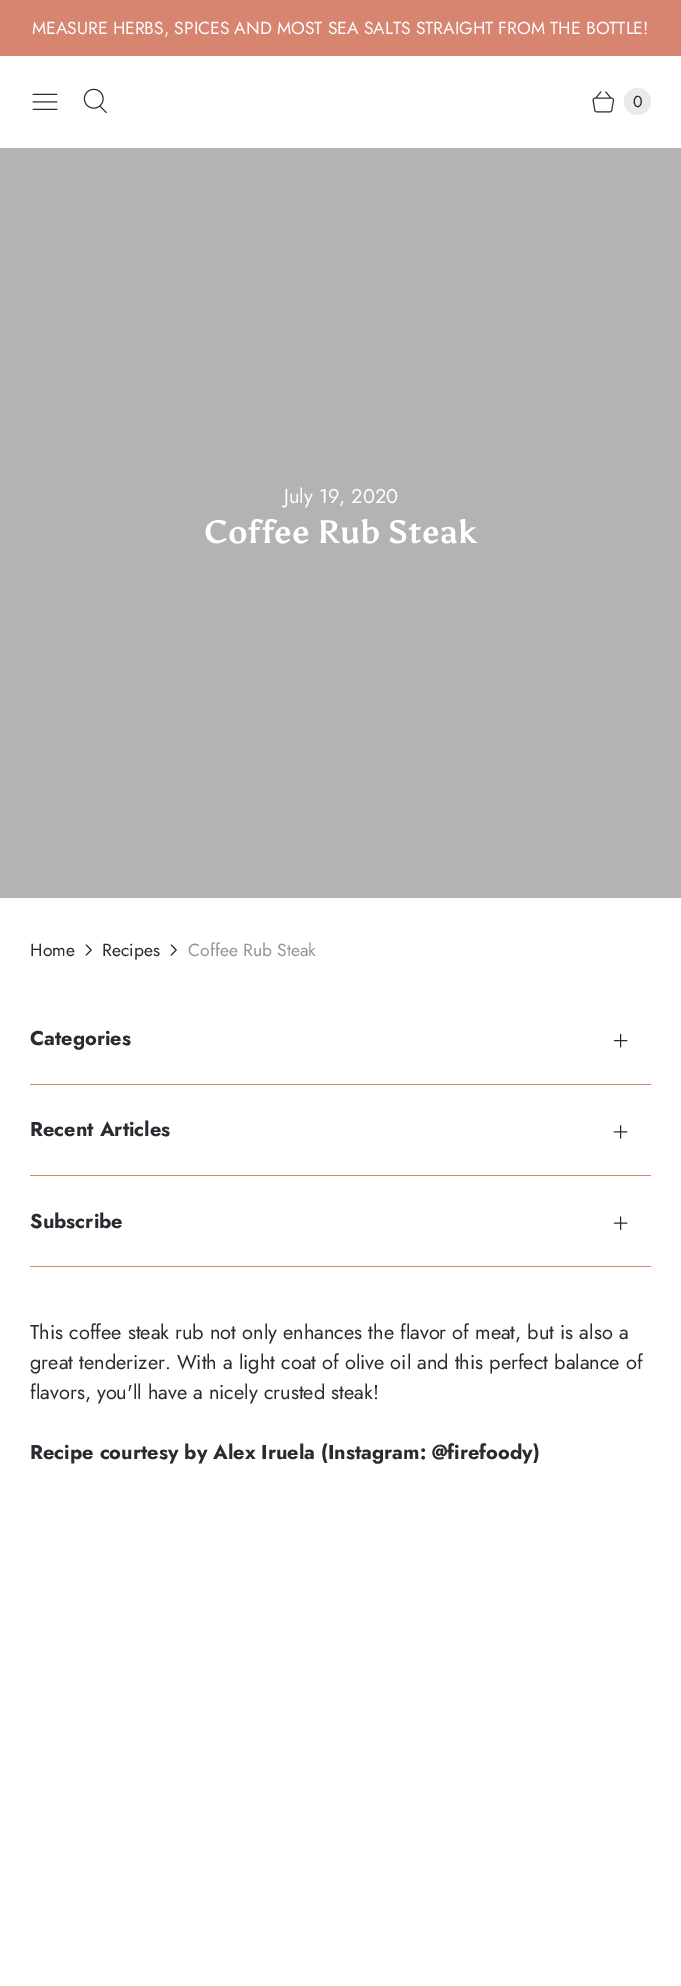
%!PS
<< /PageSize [681 1986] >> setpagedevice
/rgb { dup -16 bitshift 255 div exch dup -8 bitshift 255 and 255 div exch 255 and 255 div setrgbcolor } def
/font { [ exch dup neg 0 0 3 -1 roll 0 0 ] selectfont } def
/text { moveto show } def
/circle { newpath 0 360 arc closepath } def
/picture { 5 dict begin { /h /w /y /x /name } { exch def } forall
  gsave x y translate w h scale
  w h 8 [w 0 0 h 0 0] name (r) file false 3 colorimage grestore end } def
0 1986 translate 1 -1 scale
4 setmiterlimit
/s1 { /Jost-Regular 17.5 font 16#FFFFFF rgb } def
/s2 { /Jost-Regular 16 font 16#282C30 rgb } def
/s3 { /Jost-Regular 20 font 16#FFFFFF rgb } def
/s4 { /Asul-Bold 32.5 font 16#FFFFFF rgb } def
/s5 { /Jost-Regular 17.5 font 16#282C30 rgb } def
/s6 { /Jost-Regular 17.5 font 16#949698 rgb } def
/s7 { /Jost-Bold 20 font 16#282C30 rgb } def
/s8 { /Jost-Regular 20 font 16#282C30 rgb } def
16#FFFFFF rgb
0 0 681 1986 rectfill
16#D78471 rgb
0 0 681 56 rectfill
s1
(MEASURE HERBS, SPICES AND MOST SEA SALTS STRAIGHT FROM THE BOTTLE!) 32 34 text
(pic1.raw) 32 93 26 17 picture
(pic2.raw) 83 88 24 26 picture
(pic3.raw) 592 91 23 22 picture
16#EAEAEA rgb
637.5 101.5 13.5 circle fill
s2
(0) 633 107 text
16#B3B3B3 rgb
0 148 681 750 rectfill
s3
(July 19, 2020) 284 503 text
s4
(Coffee Rub Steak) 204 543 text
s5
(Home) 30 956 text
(pic4.raw) 85 944 7 12 picture
(Recipes) 102 956 text
(pic4.raw) 170 944 7 12 picture
s6
(Coffee Rub Steak) 188 956 text
16#D88470 rgb
30 1084 621 1 rectfill
s7
(Categories) 30 1045 text
(pic5.raw) 613 1033 15 15 picture
16#D88470 rgb
30 1175 621 1 rectfill
s7
(Recent Articles) 30 1136 text
(pic6.raw) 613 1125 15 14 picture
16#D88470 rgb
30 1266 621 1 rectfill
s7
(Subscribe) 30 1228 text
(pic7.raw) 613 1216 15 14 picture
s8
(This coffee steak rub not only enhances the flavor of meat, but is also a) 30 1339 text
(great tenderizer. With a light coat of olive oil and this perfect balance of) 30 1369 text
(flavors, you'll have a nicely crusted steak!) 30 1399 text
s7
(Recipe courtesy by Alex Iruela \(Instagram: @firefoody\)) 30 1459 text
showpage
